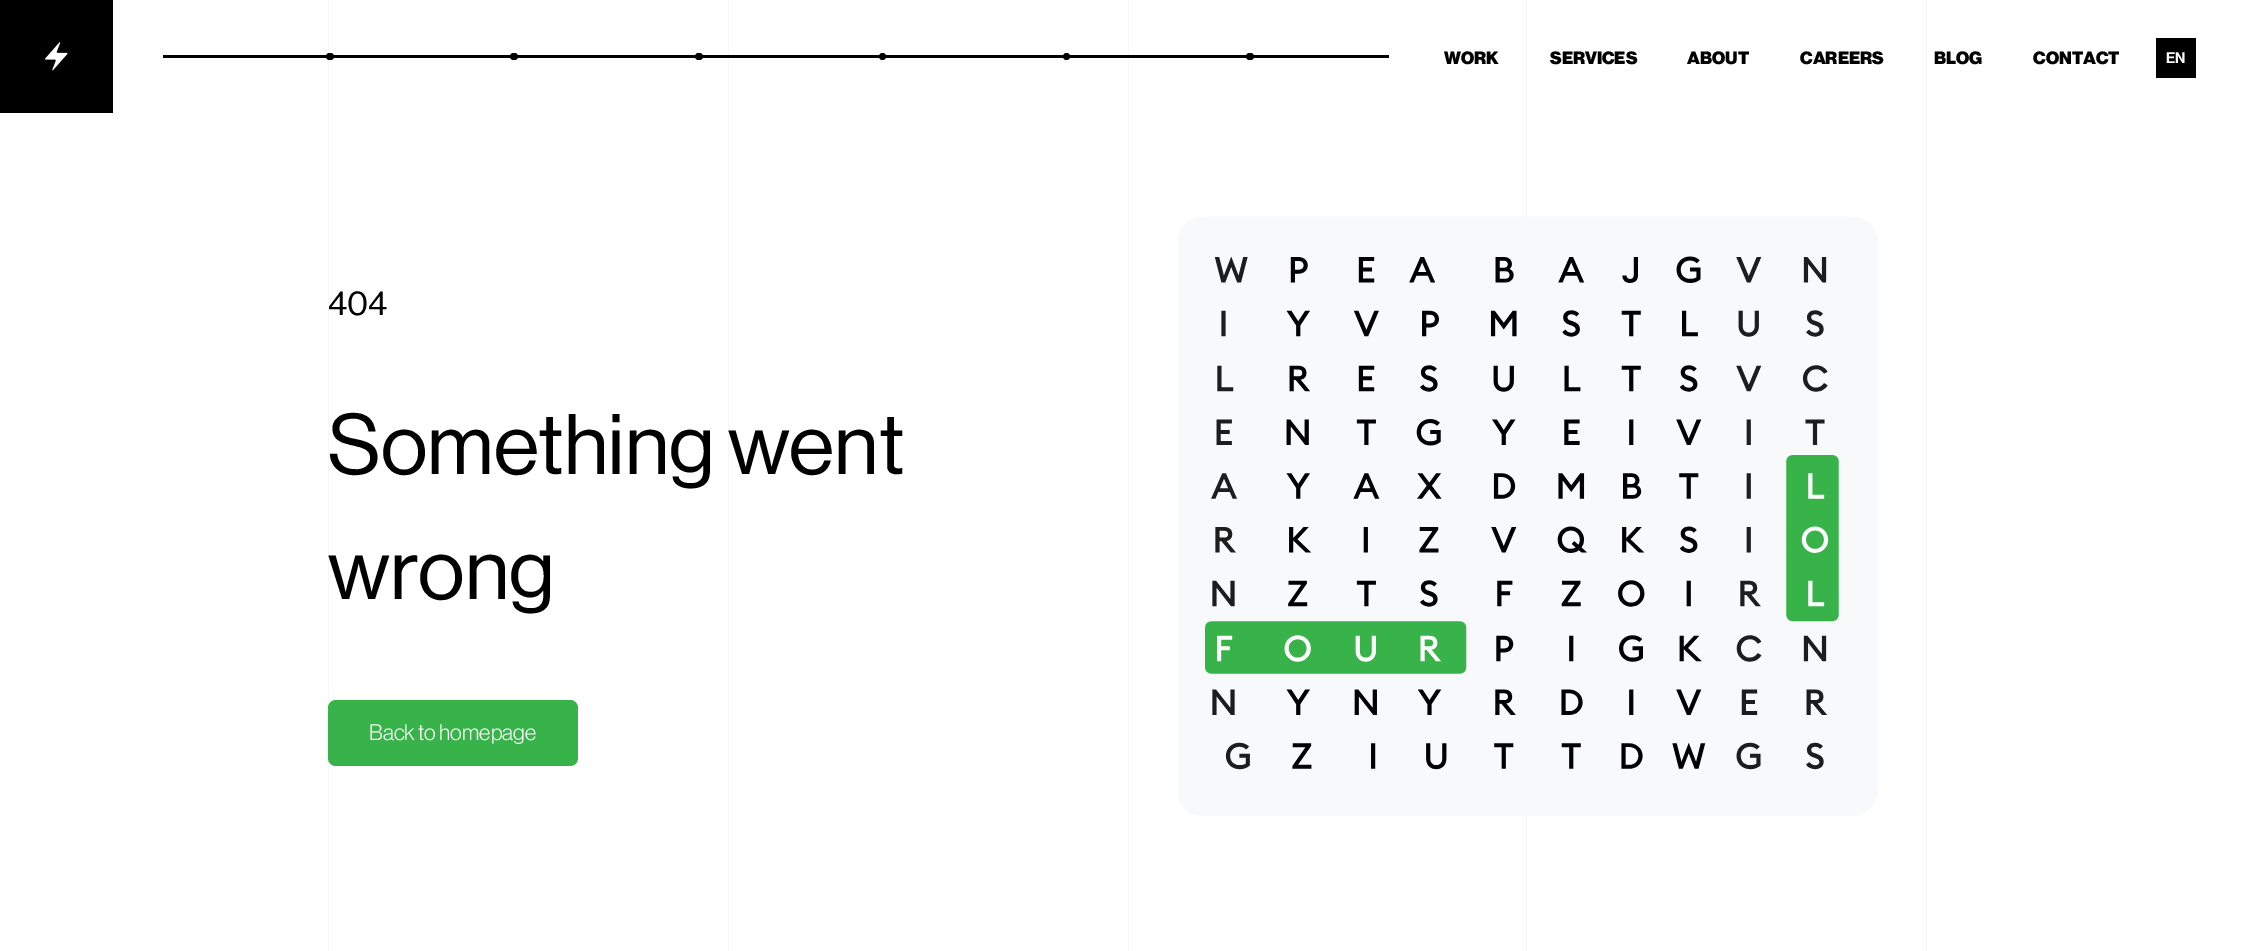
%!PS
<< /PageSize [2255 951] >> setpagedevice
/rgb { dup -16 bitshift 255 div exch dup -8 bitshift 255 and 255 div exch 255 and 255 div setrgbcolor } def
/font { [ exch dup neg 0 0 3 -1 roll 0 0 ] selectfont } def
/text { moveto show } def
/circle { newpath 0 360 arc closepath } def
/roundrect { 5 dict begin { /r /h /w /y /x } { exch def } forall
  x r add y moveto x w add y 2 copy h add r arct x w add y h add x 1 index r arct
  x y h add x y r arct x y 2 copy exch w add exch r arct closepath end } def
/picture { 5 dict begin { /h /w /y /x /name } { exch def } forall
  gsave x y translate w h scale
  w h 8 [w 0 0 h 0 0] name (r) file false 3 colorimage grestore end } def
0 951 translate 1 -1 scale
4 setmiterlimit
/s1 { /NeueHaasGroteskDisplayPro-Black 17.5 font 16#000000 rgb } def
/s2 { /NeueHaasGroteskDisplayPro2-Medium 15 font 16#FFFFFF rgb } def
/s3 { /NeueHaasGroteskDisplayPro-Medium 34 font 16#000000 rgb } def
/s4 { /NeueHaasGroteskDisplayPro-Medium 84 font 16#000000 rgb } def
/s5 { /NeueHaasGroteskDisplayPro-Regular 22 font 16#FFFFFF rgb } def
16#FFFFFF rgb
0 0 2255 951 rectfill
16#000000 rgb
0 0 113 113 rectfill
(pic1.raw) 45 42 23 29 picture
16#F6F6F6 rgb
328 0 1 951 rectfill
728 0 1 951 rectfill
1128 0 1 951 rectfill
16#000000 rgb
163 55 1226 3 rectfill
326 53 8 7 3.5 roundrect fill
510 53 8 7 3.5 roundrect fill
695 53 8 7 3.5 roundrect fill
882.5 56.5 3.5 circle fill
1066.5 56.5 3.5 circle fill
1246 53 8 7 3.5 roundrect fill
s1
(WORK) 1444 64 text
(SERVICES) 1550 64 text
(ABOUT) 1687 64 text
(CAREERS) 1800 64 text
(BLOG) 1934 64 text
(CONTACT) 2033 64 text
2156 38 40 40 rectfill
s2
(EN) 2166 63 text
16#F6F6F6 rgb
1526 0 1 951 rectfill
1926 0 1 951 rectfill
s3
(404) 328 315 text
s4
(Something went) 328 474 text
(wrong) 328 599 text
16#37B34A rgb
328 700 250 66 8 roundrect fill
s5
(Back to homepage) 369 740 text
(pic2.raw) 1178 216 699 600 picture
showpage
